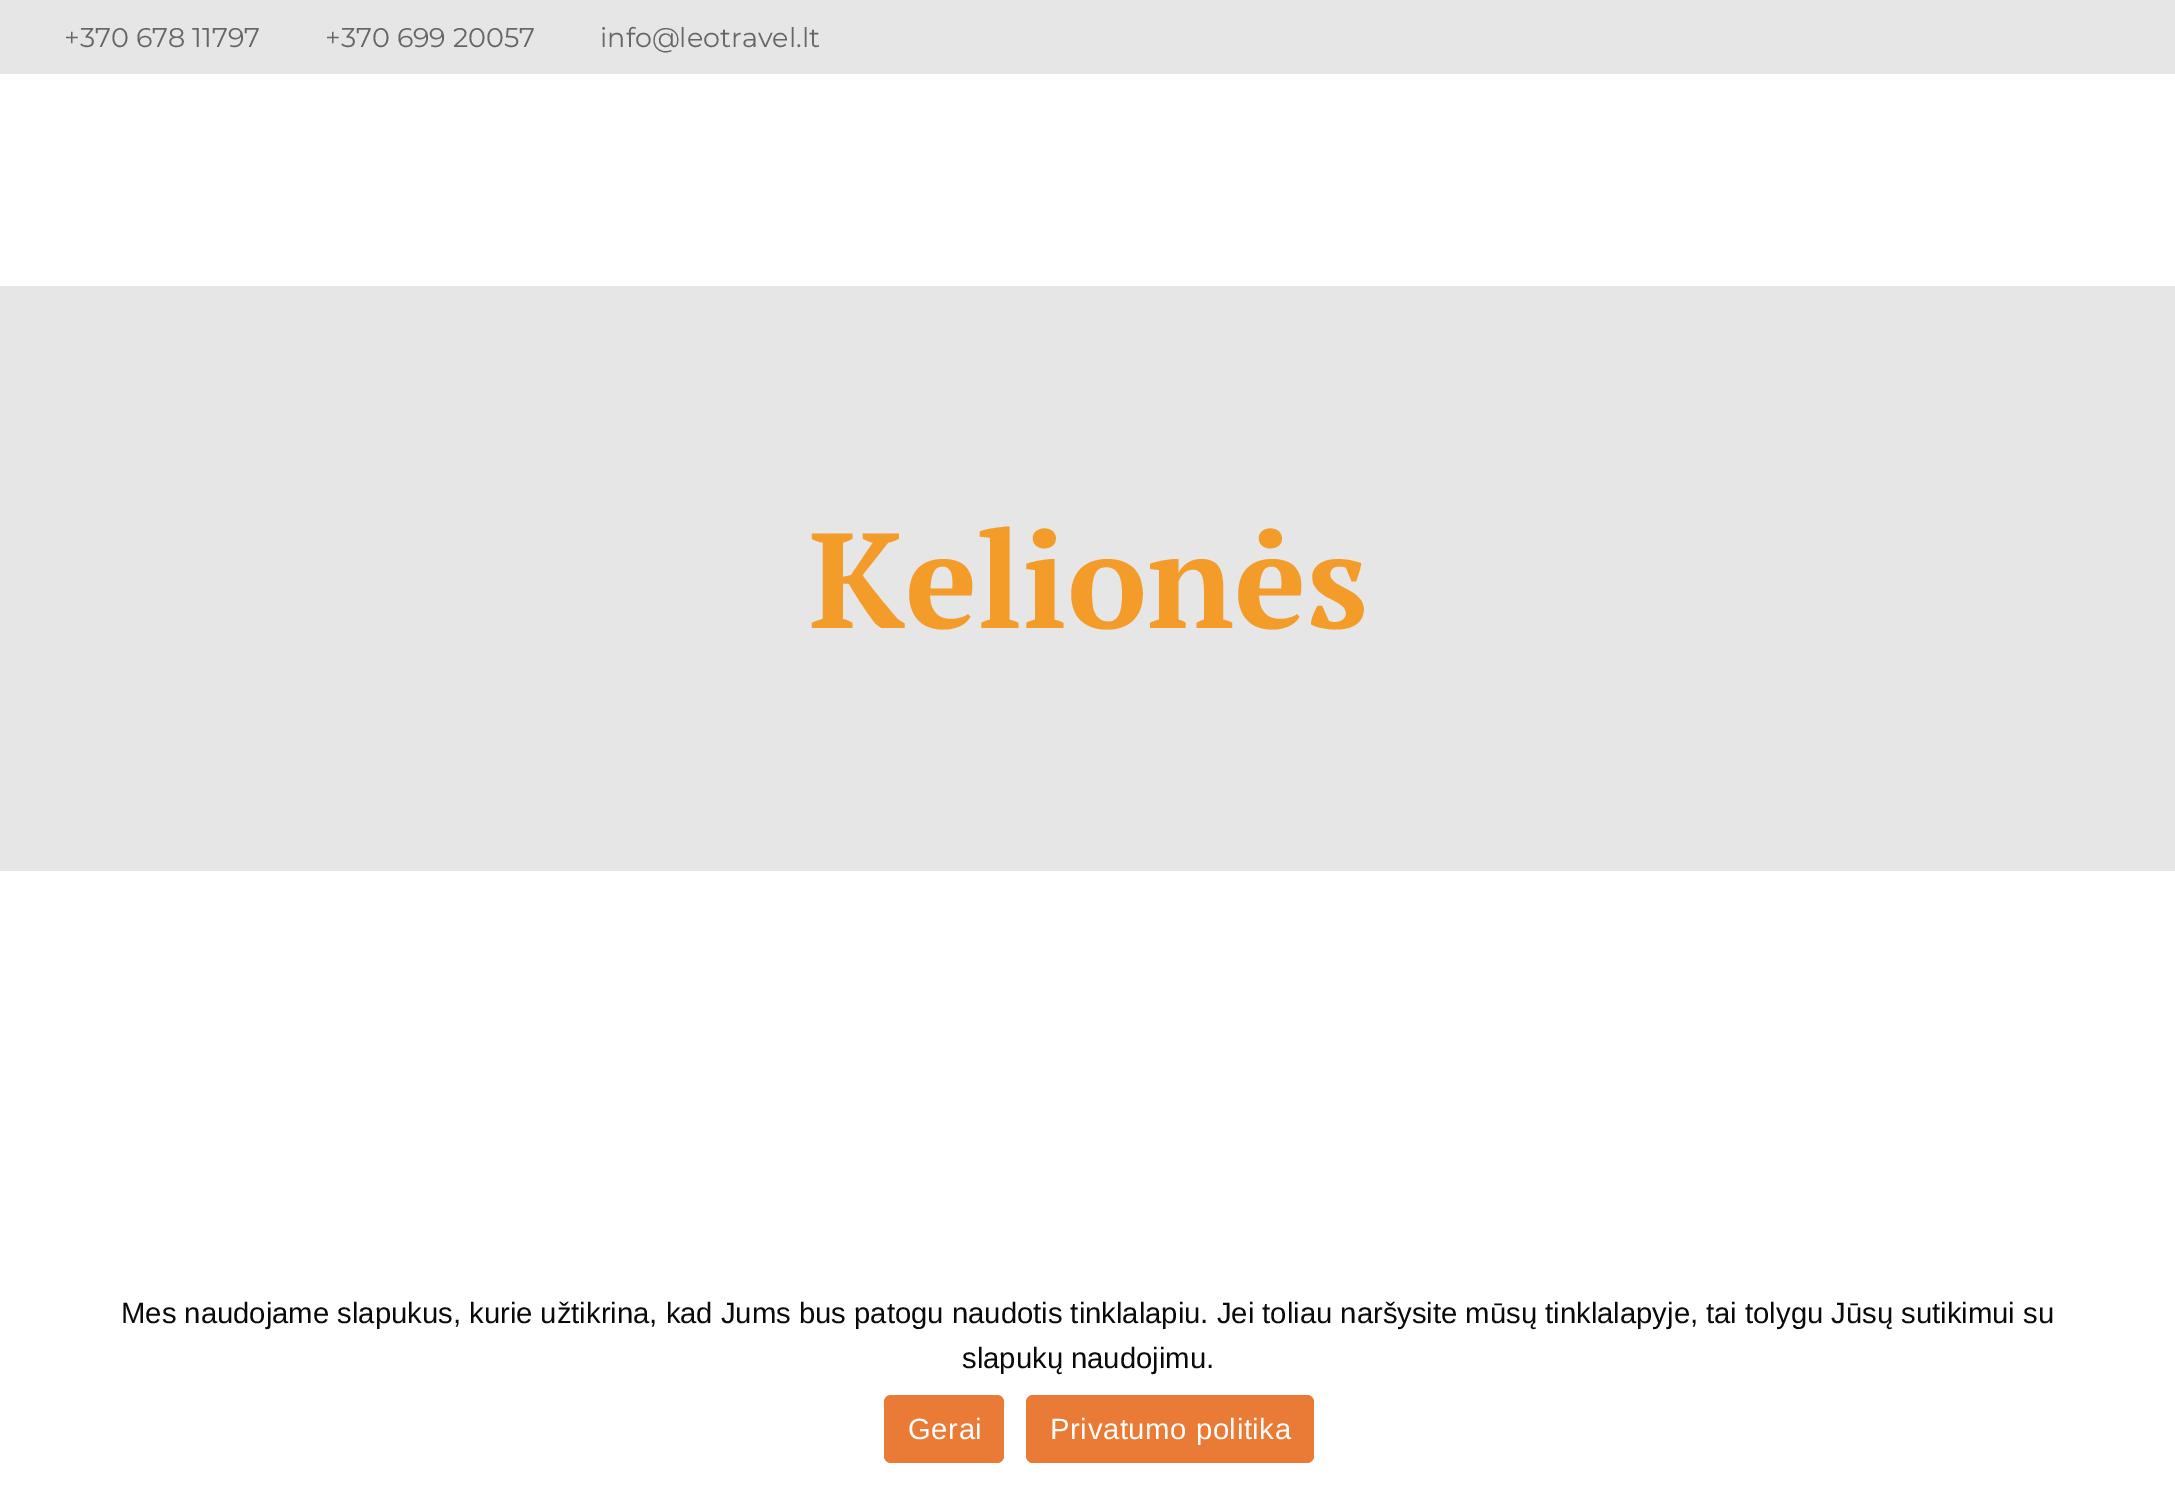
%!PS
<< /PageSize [2175 1496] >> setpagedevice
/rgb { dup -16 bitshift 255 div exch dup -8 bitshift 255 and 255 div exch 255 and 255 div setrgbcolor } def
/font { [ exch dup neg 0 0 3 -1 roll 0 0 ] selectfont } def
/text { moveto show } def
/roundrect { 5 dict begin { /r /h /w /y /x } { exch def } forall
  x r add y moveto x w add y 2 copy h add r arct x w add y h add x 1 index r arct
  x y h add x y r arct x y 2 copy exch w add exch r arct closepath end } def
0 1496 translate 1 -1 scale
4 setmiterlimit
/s1 { /Montserrat-Regular 27 font 16#666666 rgb } def
/s2 { /PTSerif-Bold 135 font 16#F49C29 rgb } def
/s3 { /LiberationSans-Regular 29.25 font 16#0A0A0A rgb } def
16#FFFFFF rgb
0 0 2175 1496 rectfill
16#E6E6E6 rgb
0 0 2175 74 rectfill
s1
(+370 678 11797) 64 47 text
(+370 699 20057) 325 47 text
(info@leotravel.lt) 600 47 text
16#E6E6E6 rgb
0 286 2175 585 rectfill
s2
(Kelionės) 809 628 text
s3
(Mes naudojame slapukus, kurie užtikrina, kad Jums bus patogu naudotis tinklalapiu. Jei toliau naršysite mūsų tinklalapyje, tai tolygu Jūsų sutikimui su) 121 1323 text
(slapukų naudojimu.) 962 1368 text
16#EA7B36 rgb
884 1395 120 68 7 roundrect fill
16#FFFFFF rgb
908 1439 moveto 0.6 0 (Gerai) ashow
16#EA7B36 rgb
1026 1395 288 68 7 roundrect fill
16#FFFFFF rgb
1050 1439 moveto 0.6 0 (Privatumo politika) ashow
showpage
